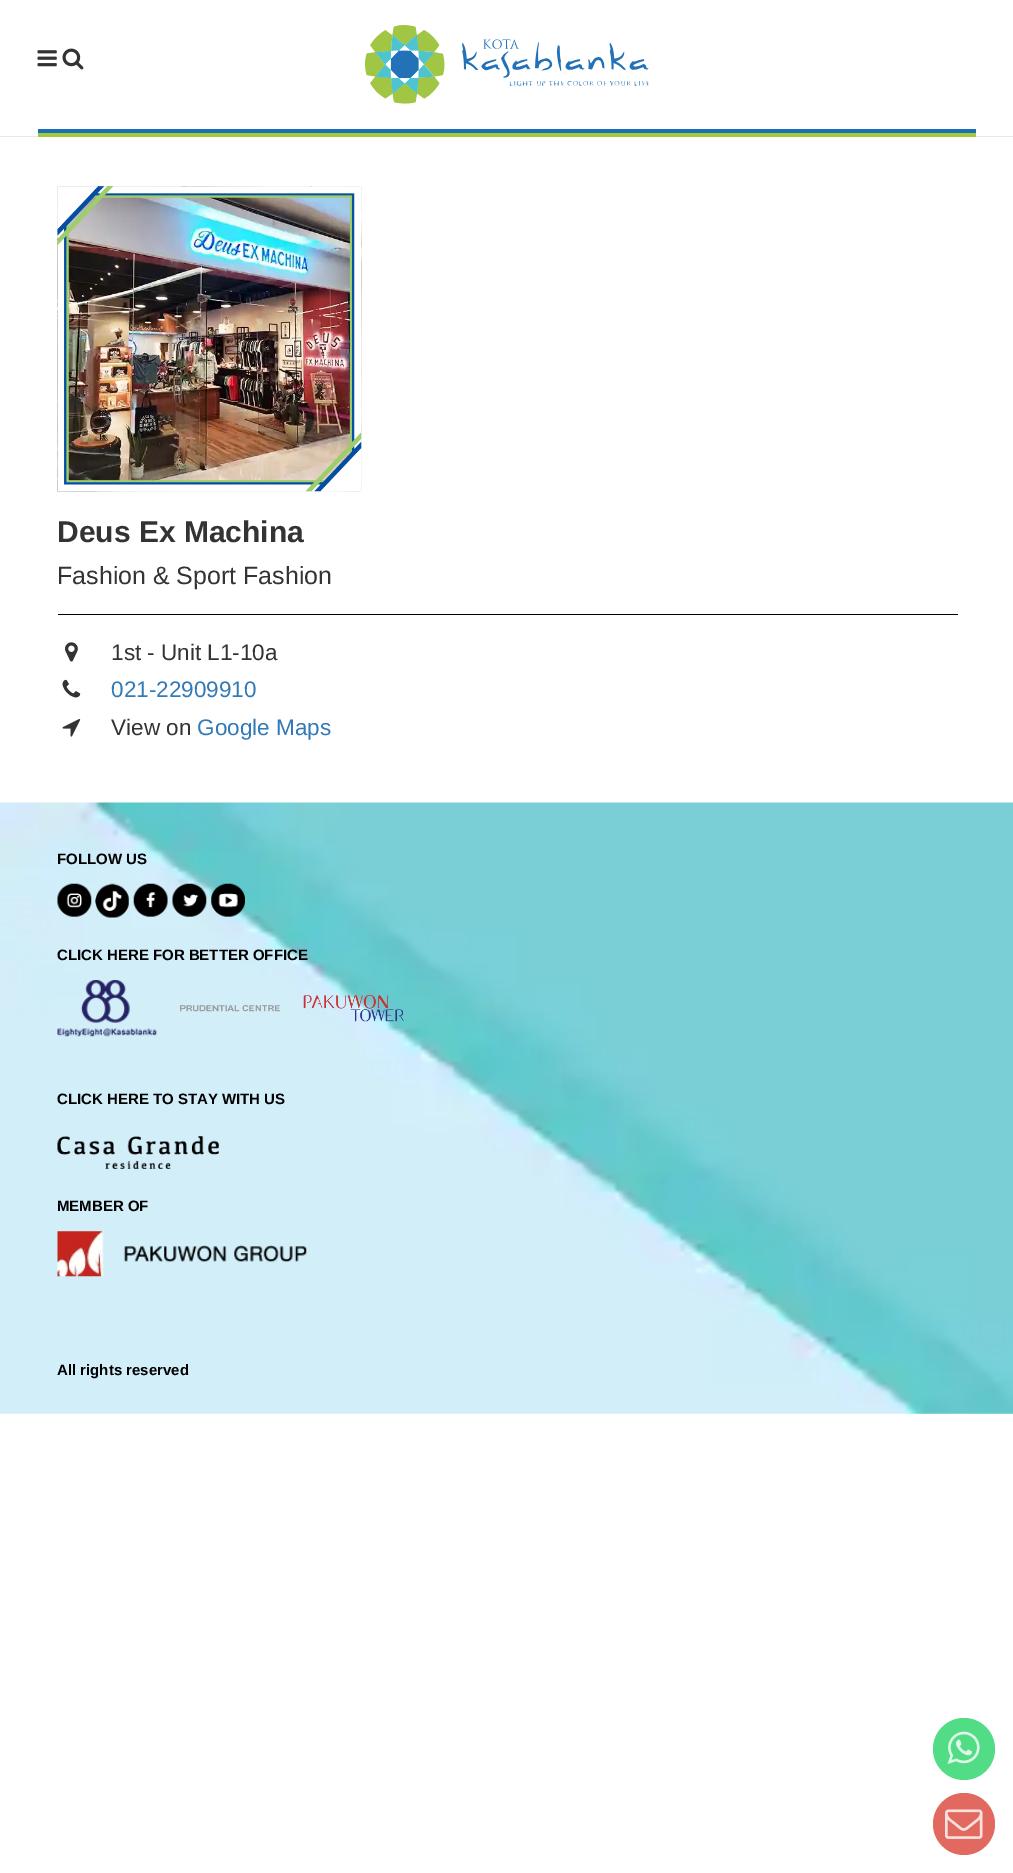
%!PS
<< /PageSize [1013 1873] >> setpagedevice
/rgb { dup -16 bitshift 255 div exch dup -8 bitshift 255 and 255 div exch 255 and 255 div setrgbcolor } def
/font { [ exch dup neg 0 0 3 -1 roll 0 0 ] selectfont } def
/text { moveto show } def
/circle { newpath 0 360 arc closepath } def
/picture { 5 dict begin { /h /w /y /x /name } { exch def } forall
  gsave x y translate w h scale
  w h 8 [w 0 0 h 0 0] name (r) file false 3 colorimage grestore end } def
0 1873 translate 1 -1 scale
4 setmiterlimit
/s1 { /LiberationSans-Bold 30 font 16#333333 rgb } def
/s2 { /LiberationSans-Regular 25 font 16#333333 rgb } def
/s3 { /LiberationSans-Regular 22.5 font 16#333333 rgb } def
/s4 { /LiberationSans-Regular 22.5 font 16#337AB7 rgb } def
/s5 { /LiberationSans-Bold 15 font 16#000000 rgb } def
16#FFFFFF rgb
0 0 1013 1873 rectfill
16#E8E8E8 rgb
0 136 1013 1 rectfill
(pic1.raw) 37 50 20 17 picture
(pic2.raw) 62 48 22 22 picture
(pic3.raw) 365 25 284 79 picture
16#1A6EBB rgb
38 129 938 4 rectfill
16#A1C938 rgb
38 133 938 4 rectfill
(pic4.raw) 57 186 305 306 picture
(pic5.raw) 57 186 305 306 picture
s1
(Deus Ex Machina) 57 542 text
s2
(Fashion & Sport Fashion) 57 584 text
16#000000 rgb
58 614 900 1 rectfill
(pic6.raw) 65 642 13 20 picture
s3
(1st - Unit L1-10a) 111 660 text
(pic7.raw) 62 679 19 19 picture
s4
(021-22909910) 111 697 text
(pic8.raw) 62 719 19 18 picture
s3
(View on) 111 735 text
s4
(Google Maps) 197 735 text
(pic9.raw) 0 802 1013 612 picture
s5
(FOLLOW US) 57 864 text
(pic10.raw) 57 883 35 34 picture
(pic11.raw) 95 883 34 35 picture
(pic12.raw) 133 883 35 34 picture
(pic13.raw) 172 883 35 34 picture
(pic14.raw) 211 883 34 34 picture
(CLICK HERE FOR BETTER OFFICE) 57 960 text
(pic15.raw) 57 980 100 57 picture
(pic16.raw) 180 1005 100 7 picture
(pic17.raw) 303 995 101 27 picture
(CLICK HERE TO STAY WITH US) 57 1104 text
(pic18.raw) 57 1136 162 33 picture
(MEMBER OF) 57 1211 text
(pic19.raw) 57 1231 250 46 picture
(All rights reserved) 57 1375 text
16#51DC85 rgb
964 1749 31 circle fill
(pic20.raw) 947 1731 33 33 picture
16#E2695F rgb
964 1824 31 circle fill
(pic21.raw) 945 1809 38 30 picture
showpage
